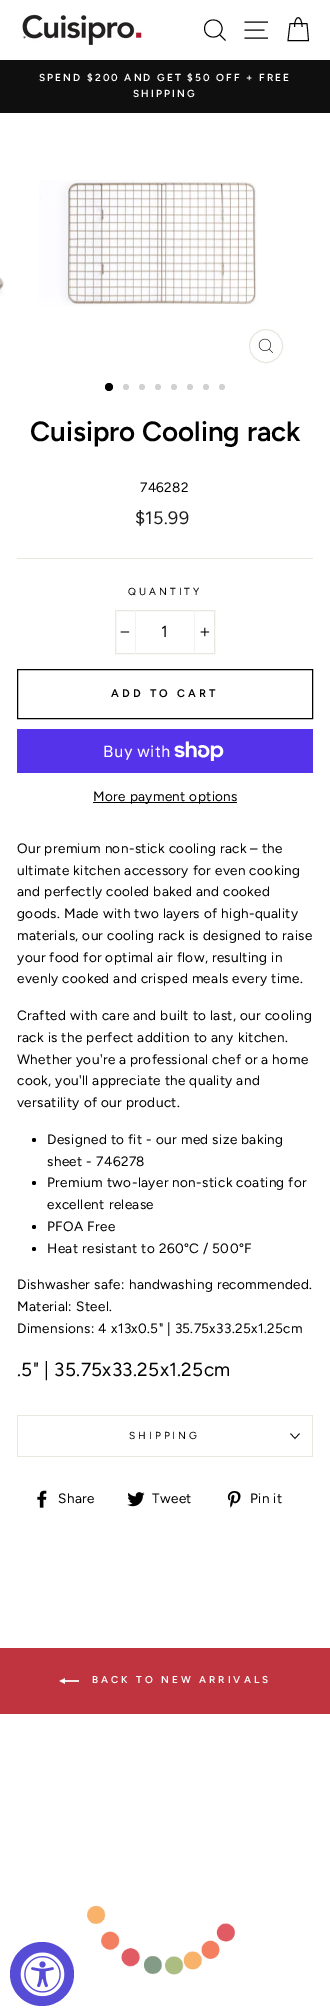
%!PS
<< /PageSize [330 2016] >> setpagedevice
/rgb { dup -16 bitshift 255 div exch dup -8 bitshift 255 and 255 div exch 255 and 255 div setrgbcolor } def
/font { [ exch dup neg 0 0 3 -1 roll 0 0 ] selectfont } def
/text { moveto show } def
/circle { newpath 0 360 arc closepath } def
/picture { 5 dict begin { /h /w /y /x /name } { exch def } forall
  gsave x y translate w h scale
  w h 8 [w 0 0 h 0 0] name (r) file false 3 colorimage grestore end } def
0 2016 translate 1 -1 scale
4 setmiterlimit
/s1 { /Figtree-SemiBold 27.75 font 16#000000 rgb } def
/s2 { /Figtree-Regular 16 font 16#000000 rgb } def
16#FFFFFF rgb
0 0 330 2016 rectfill
(pic1.raw) 22 14 120 31 picture
16#000000 rgb
0.9 setlinewidth
222 28.5 moveto 222 40 204.5 40 204.5 28.5 curveto 204.5 17 222 17 222 28.5 curveto closepath 225.5 40.5 moveto 219.5 34.5 lineto stroke
244.5 22 moveto 268 22 lineto 244.5 30 moveto 264.5 30 lineto 244.5 38 moveto 268 38 lineto 294.5 27 moveto 294.5 14.5 302 14.5 302 27 curveto stroke
290 23.5 moveto 307 23.5 lineto 308.5 40.5 lineto 288 40.5 lineto closepath stroke
16#0F0F0F rgb
0 60 330 53 rectfill
/Figtree-SemiBold 10.2 font
16#FFFFFF rgb
39 81 moveto 2.05 0 (SPEND $200 AND GET $50 OFF + FREE) ashow
133 97 moveto 2.05 0 (SHIPPING) ashow
(pic2.raw) 0 277 4 20 picture
(pic3.raw) 39 180 218 126 picture
16#E8E8E1 rgb
1 setlinewidth
266 346 16.5 circle stroke
(pic4.raw) 258 338 15 15 picture
16#000000 rgb
109 387 4 circle fill
16#D1D1D1 rgb
126 387 3 circle fill
142 387 3 circle fill
158 387 3 circle fill
174 387 3 circle fill
190 387 3 circle fill
206 387 3 circle fill
222 387 3 circle fill
s1
(Cuisipro Cooling rack) 30 441 text
/Figtree-Regular 13.6 font
140 492 moveto 0.35 0 (746282) ashow
/Figtree-Regular 18 font
16#1C1D1D rgb
135 524 moveto 0.35 0 ($15.99) ashow
16#E8E8E1 rgb
17 558 296 1 rectfill
/Figtree-Regular 10.2 font
16#000000 rgb
128 595 moveto 3 0 (QUANTITY) ashow
16#E8E8E1 rgb
115.5 610.5 99 43 rectstroke
16#F2F2F2 rgb
135 610 1 44 rectfill
(pic5.raw) 120 631 10 2 picture
s2
(1) 161 637 text
16#F2F2F2 rgb
194 610 1 44 rectfill
(pic6.raw) 200 627 10 10 picture
16#000000 rgb
17.5 669.5 295 49 rectstroke
/Figtree-SemiBold 11 font
111 697 moveto 3.25 0 (ADD TO CART) ashow
16#5433EB rgb
17 729 296 44 rectfill
/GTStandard-Regular 16 font
16#FFFFFF rgb
103 757 moveto 0.35 0 (Buy with) ashow
(pic7.raw) 174 741 50 20 picture
16#000000 rgb
93 802 144 1 rectfill
/Figtree-Regular 13.6 font
93 801 moveto 0.35 0 (More payment options) ashow
17 853 moveto 0.35 0 (Our premium non-stick cooling rack – the) ashow
17 875 moveto 0.35 0 (ultimate kitchen accessory for even cooking) ashow
17 896 moveto 0.35 0 (and perfectly cooled baked and cooked) ashow
17 918 moveto 0.35 0 (goods. Made with two layers of high-quality) ashow
17 940 moveto 0.35 0 (materials, our cooling rack is designed to raise) ashow
17 962 moveto 0.35 0 (your food for optimal air flow, resulting in) ashow
17 983 moveto 0.35 0 (evenly cooked and crisped meals every time.) ashow
17 1020 moveto 0.35 0 (Crafted with care and built to last, our cooling) ashow
17 1042 moveto 0.35 0 (rack is the perfect addition to any kitchen.) ashow
17 1064 moveto 0.35 0 (Whether you're a professional chef or a home) ashow
17 1085 moveto 0.35 0 (cook, you'll appreciate the quality and) ashow
17 1107 moveto 0.35 0 (versatility of our product.) ashow
34 1140 2 circle fill
47 1144 moveto 0.35 0 (Designed to fit - our med size baking) ashow
47 1166 moveto 0.35 0 (sheet - 746278) ashow
34 1183 2 circle fill
47 1187 moveto 0.35 0 (Premium two-layer non-stick coating for) ashow
47 1209 moveto 0.35 0 (excellent release) ashow
34 1227 2 circle fill
47 1231 moveto 0.35 0 (PFOA Free) ashow
34 1249 2 circle fill
47 1253 moveto 0.35 0 (Heat resistant to 260°C / 500°F) ashow
17 1289 moveto 0.35 0 (Dishwasher safe: handwashing recommended.) ashow
17 1311 moveto 0.35 0 (Material: Steel.) ashow
17 1333 moveto 0.35 0 (Dimensions: 4 x13x0.5" | 35.75x33.25x1.25cm) ashow
/Figtree-Regular 19 font
17 1376 moveto 0.35 0 (.5" | 35.75x33.25x1.25cm) ashow
16#E8E8E1 rgb
17 1456 296 1 rectfill
17 1415 296 1 rectfill
312 1415 1 41 rectfill
17 1415 1 41 rectfill
/Figtree-Regular 10.2 font
16#000000 rgb
129 1439 moveto 3 0 (SHIPPING) ashow
0.7 setlinewidth
290.5 1433.5 moveto 295 1438.5 lineto 299.5 1433.5 lineto stroke
(pic8.raw) 37 1490 10 18 picture
/Figtree-Regular 13.6 font
58 1503 moveto 0.35 0 (Share) ashow
(pic9.raw) 127 1492 18 15 picture
152 1503 moveto 0.35 0 (Tweet) ashow
(pic10.raw) 227 1491 14 17 picture
250 1503 moveto 0.35 0 (Pin it) ashow
16#C03440 rgb
0 1648 330 66 rectfill
(pic11.raw) 59 1678 20 6 picture
/Figtree-SemiBold 10 font
16#FFFFFF rgb
92 1683 moveto 3 0 (BACK TO NEW ARRIVALS) ashow
(pic12.raw) 87 1905 149 70 picture
16#574CD5 rgb
42 1974 32 circle fill
(pic13.raw) 20 1952 45 45 picture
showpage
